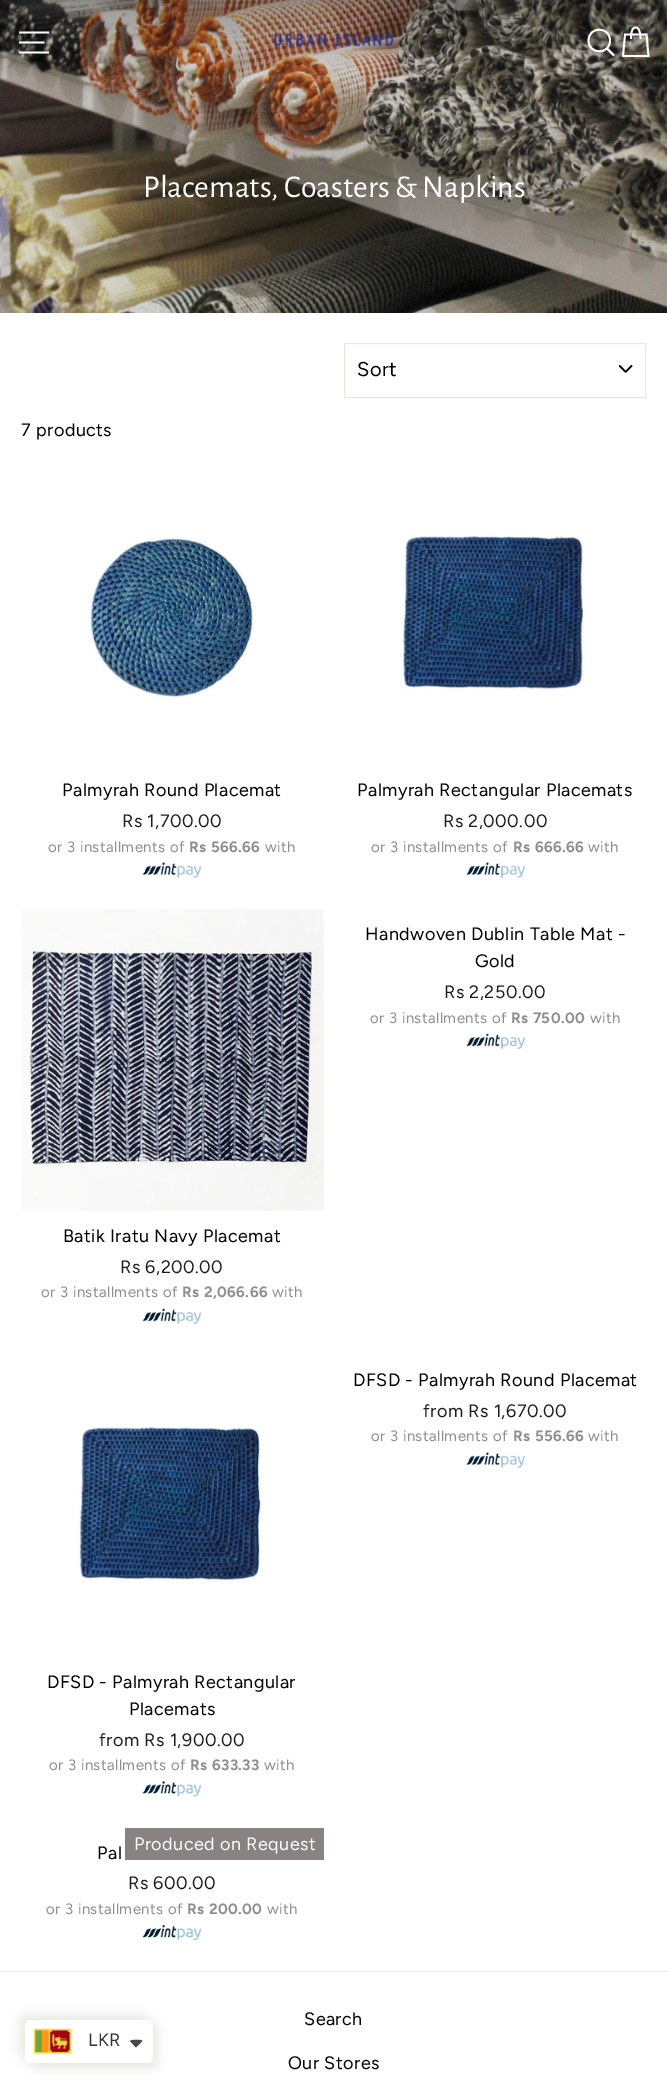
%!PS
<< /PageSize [667 2091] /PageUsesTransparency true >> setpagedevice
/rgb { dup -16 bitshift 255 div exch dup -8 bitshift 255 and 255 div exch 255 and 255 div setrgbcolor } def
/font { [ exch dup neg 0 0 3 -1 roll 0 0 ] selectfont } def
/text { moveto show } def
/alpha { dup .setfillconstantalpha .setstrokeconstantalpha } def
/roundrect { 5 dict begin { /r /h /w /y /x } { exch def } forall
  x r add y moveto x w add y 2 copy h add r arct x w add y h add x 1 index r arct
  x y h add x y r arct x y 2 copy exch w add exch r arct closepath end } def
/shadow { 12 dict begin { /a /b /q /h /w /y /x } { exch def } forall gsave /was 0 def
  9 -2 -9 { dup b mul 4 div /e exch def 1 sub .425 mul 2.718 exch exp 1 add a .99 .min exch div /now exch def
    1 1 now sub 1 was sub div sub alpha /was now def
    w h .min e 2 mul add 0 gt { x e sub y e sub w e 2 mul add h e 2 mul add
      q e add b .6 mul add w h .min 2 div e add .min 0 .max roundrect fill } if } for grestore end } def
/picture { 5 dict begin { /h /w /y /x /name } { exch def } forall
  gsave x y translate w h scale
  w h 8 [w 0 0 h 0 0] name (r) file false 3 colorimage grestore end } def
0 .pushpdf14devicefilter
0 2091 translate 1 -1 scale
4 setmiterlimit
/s1 { /AlegreyaSans-Regular 31.9 font 16#FFFFFF rgb } def
16#FFFFFF rgb
0 0 667 2091 rectfill
(pic2.raw) 0 0 667 313 picture
1.8 setlinewidth
19 32.5 moveto 49 32.5 lineto 19 42.5 moveto 44.5 42.5 lineto 19 52.5 moveto 49 52.5 lineto stroke
(pic1.raw) 273 32 121 15 picture
610 40.5 moveto 610 55 588.5 55 588.5 40.5 curveto 588.5 26 610 26 610 40.5 curveto closepath 614 55.5 moveto 607 48.5 lineto 631 39 moveto 631 29.5 633 27.5 635.5 27.5 curveto 638 27.5 640.5 29.5 640.5 39 curveto 625 34.5 moveto 646.5 34.5 lineto 648.5 56 lineto 623 56 lineto closepath stroke
s1
(Placemats, Coasters & Napkins) 143 197 text
(pic3.raw) 619 365 14 8 picture
16#E8E8E1 rgb
1 setlinewidth
344.5 343.5 301 54 rectstroke
/Figtree-Regular 20 font
16#000000 rgb
357 376 moveto 0.5 0 (Sort) ashow
/Figtree-Regular 18 font
21 436 moveto 0.45 0 (7 products) ashow
(pic4.raw) 89 537 166 161 picture
62 796 moveto 0.45 0 (Palmyrah Round Placemat) ashow
16#1C1D1D rgb
122 827 moveto 0.45 0 (Rs 1,700.00) ashow
/Figtree-Regular 15 font
16#8E8E8E rgb
48 852 moveto 0.45 0 (or 3 installments of) ashow
/Figtree-Bold 15 font
189 852 moveto 0.45 0 (Rs 566.66) ashow
/Figtree-Regular 15 font
265 852 moveto 0.45 0 (with) ashow
(pic5.raw) 142 862 60 16 picture
(pic6.raw) 402 534 184 157 picture
/Figtree-Regular 18 font
16#000000 rgb
357 796 moveto 0.45 0 (Palmyrah Rectangular Placemats) ashow
16#1C1D1D rgb
443 827 moveto 0.45 0 (Rs 2,000.00) ashow
/Figtree-Regular 15 font
16#8E8E8E rgb
371 852 moveto 0.45 0 (or 3 installments of) ashow
/Figtree-Bold 15 font
513 852 moveto 0.45 0 (Rs 666.66) ashow
/Figtree-Regular 15 font
588 852 moveto 0.45 0 (with) ashow
(pic7.raw) 466 862 59 16 picture
/Figtree-Regular 18 font
16#000000 rgb
365 940 moveto 0.45 0 (Handwoven Dublin Table Mat -) ashow
475 967 moveto 0.45 0 (Gold) ashow
16#1C1D1D rgb
444 998 moveto 0.45 0 (Rs 2,250.00) ashow
/Figtree-Regular 15 font
16#8E8E8E rgb
370 1023 moveto 0.45 0 (or 3 installments of) ashow
/Figtree-Bold 15 font
511 1023 moveto 0.45 0 (Rs 750.00) ashow
/Figtree-Regular 15 font
590 1023 moveto 0.45 0 (with) ashow
(pic8.raw) 466 1033 59 16 picture
(pic9.raw) 21 909 303 302 picture
/Figtree-Regular 18 font
16#000000 rgb
63 1242 moveto 0.45 0 (Batik Iratu Navy Placemat) ashow
16#1C1D1D rgb
120 1273 moveto 0.45 0 (Rs 6,200.00) ashow
/Figtree-Regular 15 font
16#8E8E8E rgb
41 1297 moveto 0.45 0 (or 3 installments of) ashow
/Figtree-Bold 15 font
182 1297 moveto 0.45 0 (Rs 2,066.66) ashow
/Figtree-Regular 15 font
272 1297 moveto 0.45 0 (with) ashow
(pic10.raw) 142 1308 60 16 picture
/Figtree-Regular 18 font
16#000000 rgb
353 1386 moveto 0.45 0 (DFSD - Palmyrah Round Placemat) ashow
16#1C1D1D rgb
423 1417 moveto 0.45 0 (from Rs 1,670.00) ashow
/Figtree-Regular 15 font
16#8E8E8E rgb
371 1441 moveto 0.45 0 (or 3 installments of) ashow
/Figtree-Bold 15 font
513 1441 moveto 0.45 0 (Rs 556.66) ashow
/Figtree-Regular 15 font
588 1441 moveto 0.45 0 (with) ashow
(pic7.raw) 466 1452 59 16 picture
(pic11.raw) 78 1425 185 158 picture
/Figtree-Regular 18 font
16#000000 rgb
47 1688 moveto 0.45 0 (DFSD - Palmyrah Rectangular) ashow
129 1715 moveto 0.45 0 (Placemats) ashow
16#1C1D1D rgb
99 1746 moveto 0.45 0 (from Rs 1,900.00) ashow
/Figtree-Regular 15 font
16#8E8E8E rgb
49 1770 moveto 0.45 0 (or 3 installments of) ashow
/Figtree-Bold 15 font
190 1770 moveto 0.45 0 (Rs 633.33) ashow
/Figtree-Regular 15 font
264 1770 moveto 0.45 0 (with) ashow
(pic12.raw) 142 1781 60 16 picture
16#888282 rgb
125 1828 199 32 rectfill
/Figtree-Regular 18 font
16#FFFFFF rgb
134 1850 moveto 0.45 0 (Produced on Request) ashow
16#000000 rgb
97 1859 moveto 0.45 0 (Pal) ashow
16#1C1D1D rgb
128 1889 moveto 0.45 0 (Rs 600.00) ashow
/Figtree-Regular 15 font
16#8E8E8E rgb
46 1914 moveto 0.45 0 (or 3 installments of) ashow
/Figtree-Bold 15 font
187 1914 moveto 0.45 0 (Rs 200.00) ashow
/Figtree-Regular 15 font
267 1914 moveto 0.45 0 (with) ashow
(pic13.raw) 142 1925 60 15 picture
16#E8E8E1 rgb
0 1971 667 1 rectfill
/Figtree-Regular 18 font
16#000000 rgb
304 2025 moveto 0.45 0 (Search) ashow
288 2069 moveto 0.45 0 (Our Stores) ashow
16#E8E8E2 rgb
20 2015 128 43 6 5.5 1 shadow
30 2025 128 43 6 5.5 1 shadow
16#FFFFFF rgb
25 2020 128 43 6 roundrect fill
(pic14.raw) 33 2028 39 26 picture
16#333333 rgb
88 2046 moveto 0.45 0 (LKR) ashow
16#474942 rgb
132.5 2040 moveto 135 2040 140.5 2039 142.5 2041 curveto 136 2047.5 lineto 130 2041 lineto 130.5 2040.5 131.5 2040 132.5 2040 curveto closepath fill
.poppdf14devicefilter showpage
